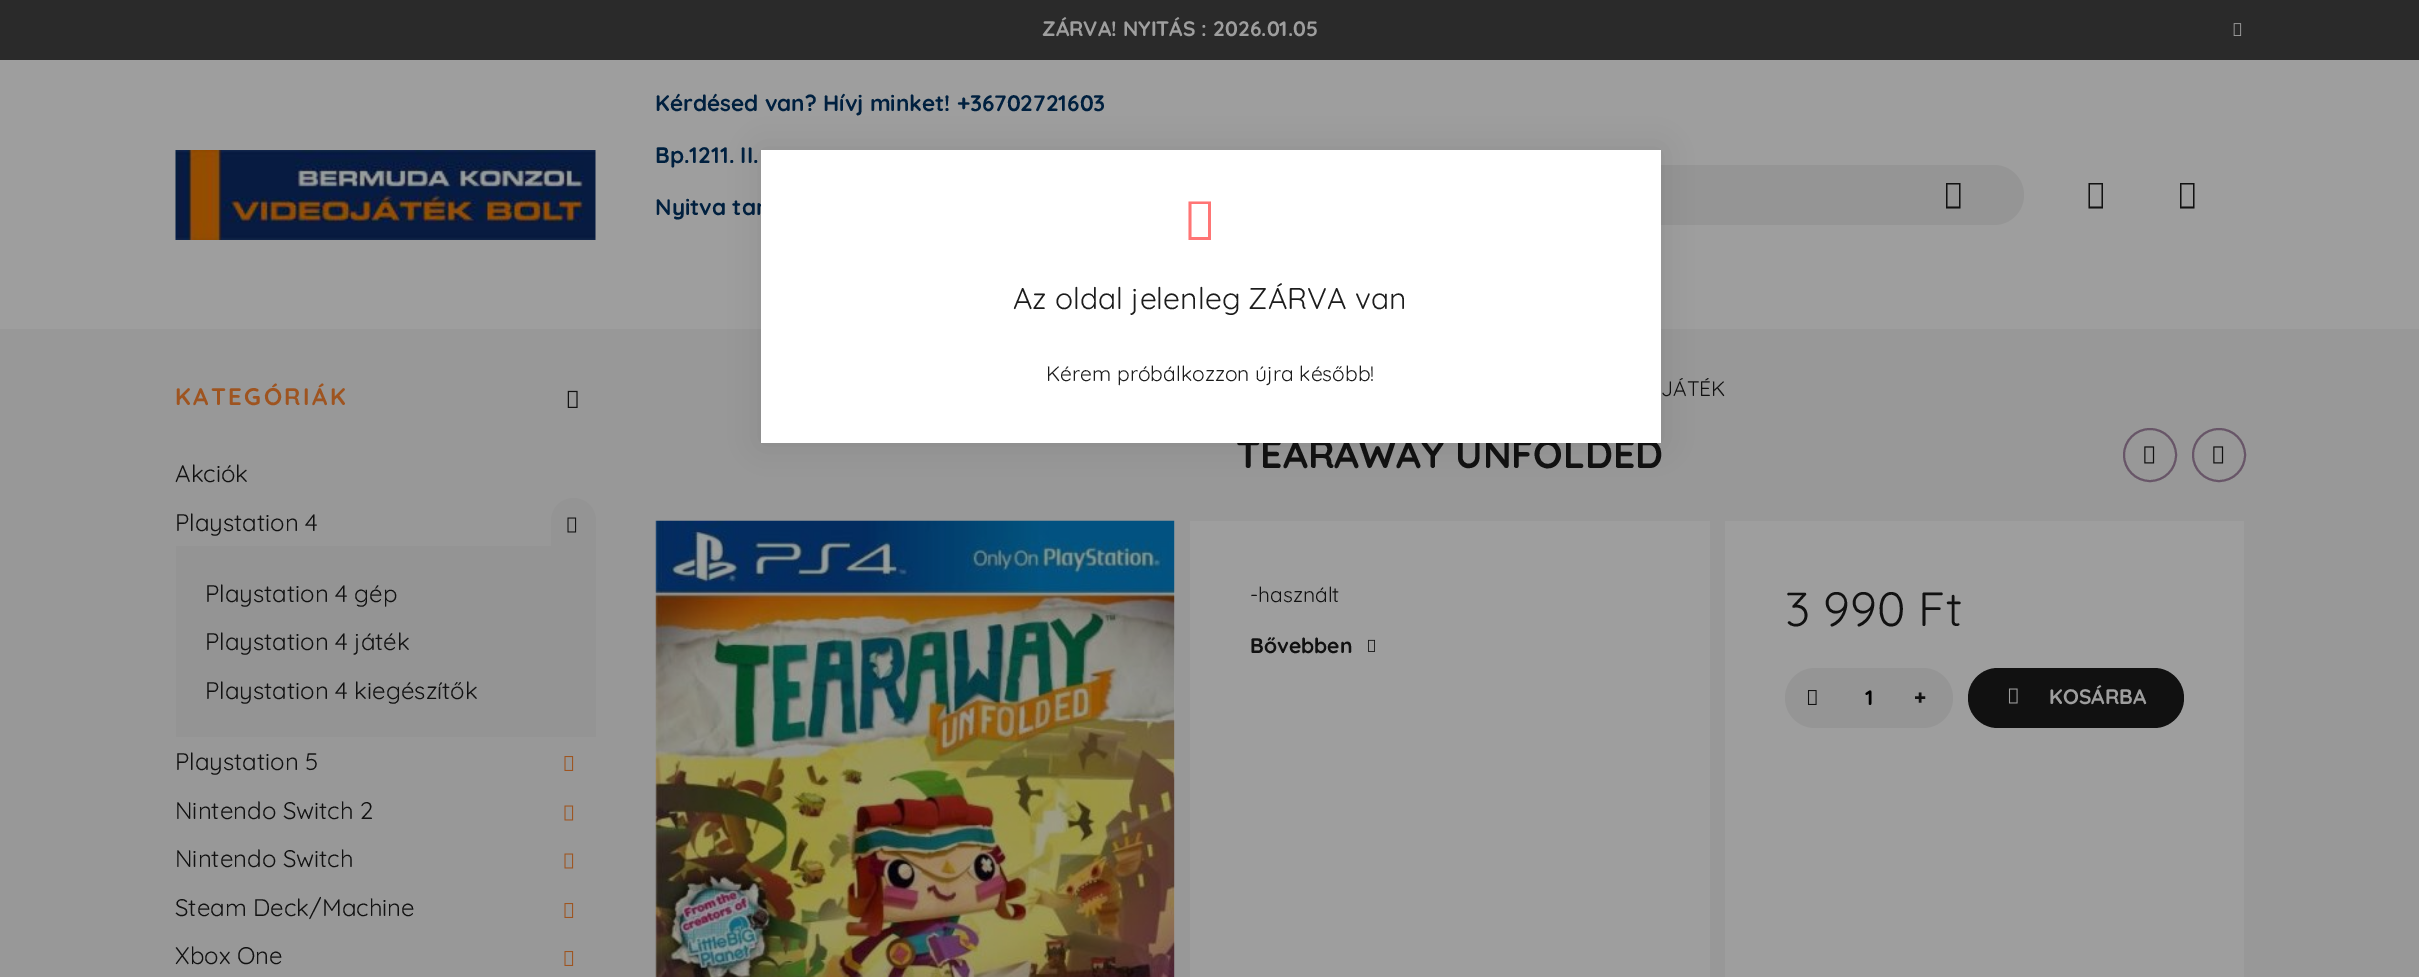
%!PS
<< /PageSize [2419 977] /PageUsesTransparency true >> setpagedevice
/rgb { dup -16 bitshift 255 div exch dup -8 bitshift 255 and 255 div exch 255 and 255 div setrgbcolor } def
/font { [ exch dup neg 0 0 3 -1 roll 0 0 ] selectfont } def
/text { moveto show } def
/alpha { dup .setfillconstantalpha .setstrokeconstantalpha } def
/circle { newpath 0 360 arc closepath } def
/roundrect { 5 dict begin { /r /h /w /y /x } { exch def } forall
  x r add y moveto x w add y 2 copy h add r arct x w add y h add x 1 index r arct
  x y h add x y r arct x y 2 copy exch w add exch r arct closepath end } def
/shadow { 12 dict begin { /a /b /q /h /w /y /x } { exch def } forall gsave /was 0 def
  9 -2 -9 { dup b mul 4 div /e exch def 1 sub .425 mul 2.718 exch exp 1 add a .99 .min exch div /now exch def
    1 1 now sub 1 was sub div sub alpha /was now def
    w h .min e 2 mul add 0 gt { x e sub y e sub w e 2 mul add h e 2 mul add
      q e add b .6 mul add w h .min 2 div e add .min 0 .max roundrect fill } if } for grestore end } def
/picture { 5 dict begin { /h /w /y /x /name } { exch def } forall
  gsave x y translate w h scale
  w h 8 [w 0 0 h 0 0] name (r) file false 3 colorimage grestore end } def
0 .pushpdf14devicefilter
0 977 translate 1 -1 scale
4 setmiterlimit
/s1 { /Quicksand-Bold 21 font 16#9E9E9E rgb } def
/s2 { /Quicksand-Bold 22.5 font 16#00203F rgb } def
/s3 { /Quicksand-Regular 24 font 16#111111 rgb } def
/s4 { /Quicksand-Regular 21 font 16#111111 rgb } def
/s5 { /Quicksand-Bold 39 font 16#111111 rgb } def
/s6 { /Quicksand-Bold 21 font 16#111111 rgb } def
/s7 { /Quicksand-Regular 48 font 16#111111 rgb } def
/s8 { /Quicksand-Bold 21 font 16#000000 rgb } def
/s9 { /NotoSans-Black 21 font 16#111111 rgb } def
/s10 { /Quicksand-Regular 30 font 16#1C1C1C rgb } def
/s11 { /Quicksand-Regular 21 font 16#1C1C1C rgb } def
16#989898 rgb
0 0 2419 977 rectfill
16#2A2A2A rgb
0 0 2419 60 rectfill
s1
(ZÁRVA! NYITÁS : 2026.01.05) 1042 36 text
(pic1.raw) 2233 23 9 13 picture
0 60 2419 269 rectfill
(pic2.raw) 175 150 421 90 picture
s2
(Kérdésed van? Hívj minket! +36702721603) 655 111 text
(Bp.1211. II.) 655 163 text
(Nyitva tar) 655 215 text
16#959595 rgb
1424 165 600 60 30 roundrect fill
16#111111 rgb
1946 208.5 moveto 1946 183 lineto 1960.5 183 lineto 1960.5 208.5 lineto closepath 1947.5 206.5 moveto 1959 206.5 lineto 1959 184.5 lineto 1947.5 184.5 lineto closepath fill
2088.5 208.5 moveto 2088.5 183 lineto 2103 183 lineto 2103 208.5 lineto closepath 2090 206.5 moveto 2101.5 206.5 lineto 2101.5 184.5 lineto 2090 184.5 lineto closepath fill
2180 208.5 moveto 2180 183 lineto 2194.5 183 lineto 2194.5 208.5 lineto closepath 2181.5 206.5 moveto 2193 206.5 lineto 2193 184.5 lineto 2181.5 184.5 lineto closepath fill
/Quicksand-Bold 24 font
16#9E5420 rgb
175 405 moveto 2.4 0 (KATEGÓRIÁK) ashow
(pic3.raw) 567 390 11 18 picture
s3
(Akciók) 175 482 text
(Playstation 4) 175 531 text
16#949494 rgb
573.5 498 moveto 586 498 596 508 596 520.5 curveto 596 546 lineto 551 546 lineto 551 520.5 lineto 551 508 561 498 573.5 498 curveto closepath fill
(pic4.raw) 567 517 10 16 picture
176 546 420 191 rectfill
s3
(Playstation 4 gép) 205 602 text
(Playstation 4 játék) 205 650 text
(Playstation 4 kiegészítők) 205 699 text
(Playstation 5) 175 770 text
(pic5.raw) 564 756 10 15 picture
(Nintendo Switch 2) 175 819 text
(pic6.raw) 564 805 10 16 picture
(Nintendo Switch) 175 867 text
(pic6.raw) 564 853 10 16 picture
(Steam Deck/Machine) 175 916 text
(pic5.raw) 564 903 10 15 picture
(Xbox One) 175 964 text
(pic5.raw) 564 951 10 15 picture
s4
(JÁTÉK) 1661 396 text
s5
(TEARAWAY UNFOLDED) 1236 468 text
16#685668 rgb
2 setlinewidth
2150 455 26 circle stroke
(pic7.raw) 2144 446 11 18 picture
2219 455 26 circle stroke
(pic7.raw) 2213 446 11 18 picture
16#9E9E9E rgb
1174 521 1 456 rectfill
(pic8.raw) 655 520 520 457 picture
1190 521 520 456 rectfill
s4
(-használt) 1250 602 text
s6
(Bővebben) 1250 653 text
(pic9.raw) 1368 639 7 13 picture
16#9E9E9E rgb
1725 521 519 456 rectfill
s7
(3 990 Ft) 1785 626 text
16#959595 rgb
1785 668 168 60 30 roundrect fill
(pic10.raw) 1807 690 10 15 picture
s8
(1) 1865 705 text
s9
(+) 1914 705 text
1968 668 216 60 30 roundrect fill
(pic11.raw) 2008 688 10 16 picture
s1
(KOSÁRBA) 2049 704 text
16#000000 rgb
761 150 900 293 0 15 0.1 shadow
16#FFFFFF rgb
761 150 900 293 rectfill
16#FF7575 rgb
1188.5 240 moveto 1188.5 201.5 lineto 1211 201.5 lineto 1211 240 lineto closepath 1191.5 237 moveto 1208 237 lineto 1208 204 lineto 1191.5 204 lineto closepath fill
s10
(Az oldal jelenleg ZÁRVA van) 1013 309 text
s11
(Kérem próbálkozzon újra később!) 1046 381 text
.poppdf14devicefilter showpage
